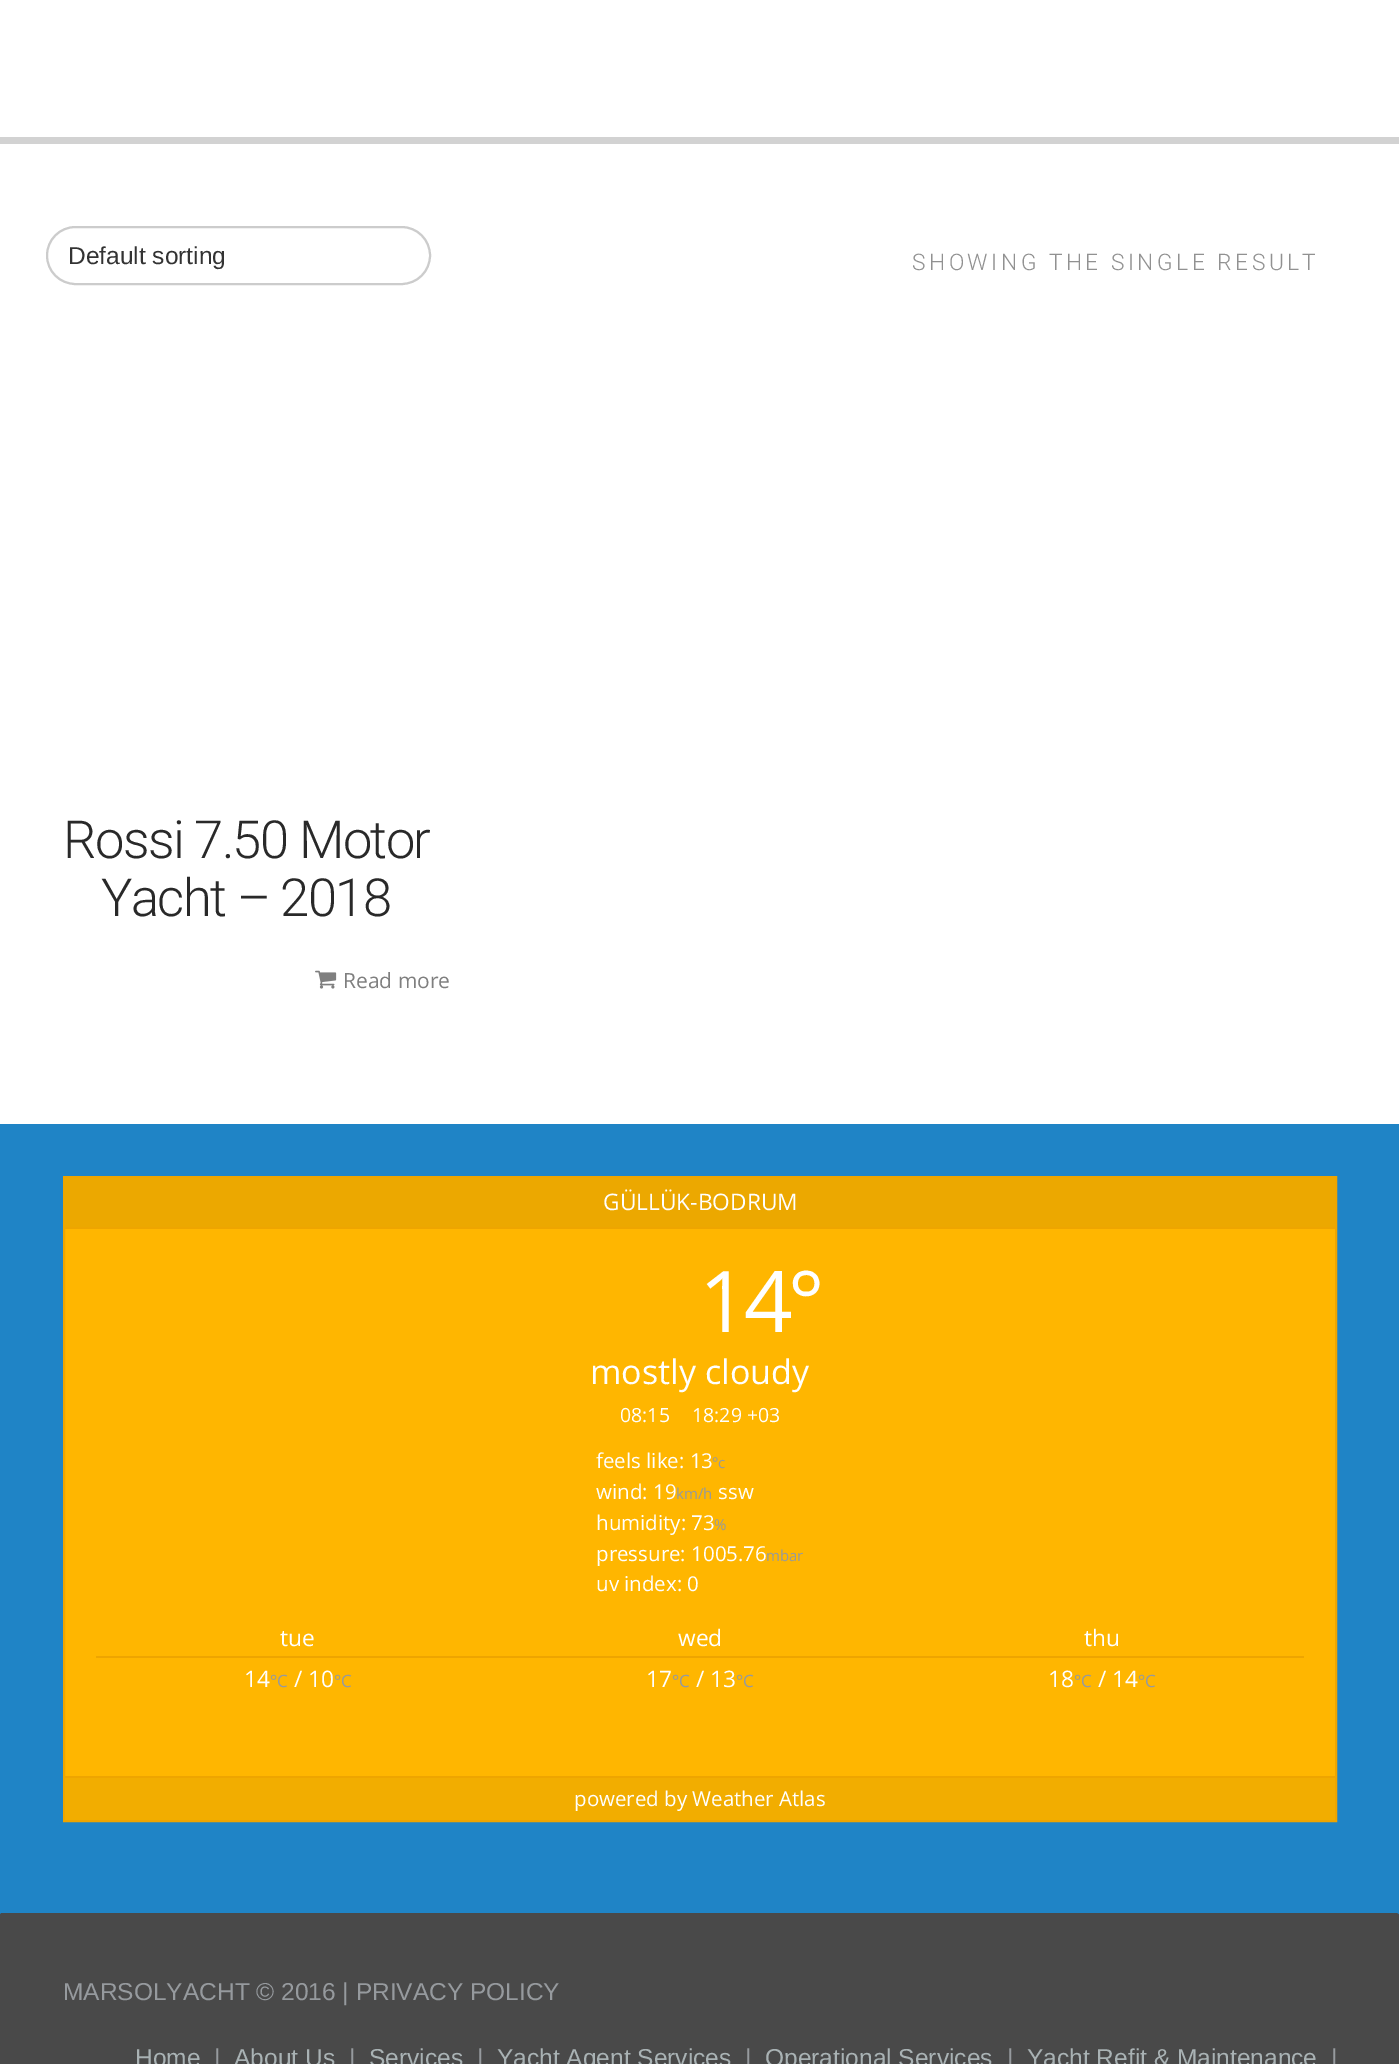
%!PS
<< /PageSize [1399 2064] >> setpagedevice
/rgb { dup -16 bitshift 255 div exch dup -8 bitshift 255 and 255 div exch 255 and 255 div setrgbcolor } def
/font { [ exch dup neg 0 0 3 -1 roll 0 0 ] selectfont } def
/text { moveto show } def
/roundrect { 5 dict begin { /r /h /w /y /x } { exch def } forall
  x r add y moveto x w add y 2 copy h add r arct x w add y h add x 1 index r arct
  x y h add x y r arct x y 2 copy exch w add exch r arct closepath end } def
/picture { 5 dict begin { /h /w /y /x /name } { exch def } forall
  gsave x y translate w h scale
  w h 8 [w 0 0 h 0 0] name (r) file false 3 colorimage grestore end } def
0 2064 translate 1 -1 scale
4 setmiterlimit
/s1 { /LiberationSans-Regular 24.5 font 16#333333 rgb } def
/s2 { /OpenSans-Regular 21 font 16#7F7F7F rgb } def
/s3 { /OpenSans-Regular 22.75 font 16#FFFFFF rgb } def
/s4 { /OpenSans-Regular 34 font 16#FFFFFF rgb } def
/s5 { /OpenSans-Regular 19.5 font 16#FFFFFF rgb } def
/s6 { /OpenSans-Regular 20.5 font 16#FFFFFF rgb } def
/s7 { /OpenSans-Regular 15 font 16#969A9E rgb } def
/s8 { /OpenSans-Regular 17 font 16#969A9E rgb } def
/s9 { /LiberationSans-Regular 24.5 font 16#969A9E rgb } def
/s10 { /LiberationSans-Regular 24.5 font 16#A9B2B4 rgb } def
16#FFFFFF rgb
0 0 1399 2064 rectfill
16#D2D2D2 rgb
0 137 1399 7 rectfill
16#CCCCCC rgb
2 setlinewidth
47 227 383 57 28.5 roundrect stroke
s1
(Default sorting) 68 264 text
/Roboto-Light 22.75 font
16#919191 rgb
912 270 moveto 3.5 0 (SHOWING THE SINGLE RESULT) ashow
/Roboto-Light 52.5 font
16#292929 rgb
63 858 moveto -1.6 0 (Rossi 7.50 Motor) ashow
101 916 moveto -1.6 0 (Yacht – 2018) ashow
(pic1.raw) 315 970 22 19 picture
s2
(Read more) 343 988 text
16#1F84C6 rgb
0 1124 1399 791 rectfill
16#FFB600 rgb
65 1229 1270 547 rectfill
16#EEA500 rgb
64 1177 1272 644 rectstroke
16#ECA800 rgb
65 1178 1270 49 rectfill
16#EEA500 rgb
65 1227 1270 2 rectfill
s3
(GÜLLÜK-BODRUM) 603 1210 text
/OpenSans-Regular 85 font
699 1332 moveto -4 0 (14°) ashow
s4
(mostly cloudy) 590 1384 text
s5
(08:15) 620 1422 text
(18:29 +03) 692 1422 text
s6
(feels like: 13) 596 1468 text
s7
(°c) 712 1468 text
s6
(wind: 19) 596 1499 text
s7
(km/h) 676 1499 text
s6
(ssw) 718 1499 text
(humidity: 73) 596 1530 text
s7
(%) 714 1530 text
s6
(pressure: 1005.76) 596 1561 text
s7
(mbar) 766 1561 text
s6
(uv index: 0) 596 1591 text
16#EEA500 rgb
96 1656 1208 2 rectfill
s3
(tue) 280 1646 text
(wed) 678 1646 text
(thu) 1084 1646 text
(14) 244 1687 text
s8
(°C) 270 1687 text
s3
(/ 10) 294 1687 text
s8
(°C) 334 1687 text
s3
(17) 646 1687 text
s8
(°C) 672 1687 text
s3
(/ 13) 696 1687 text
s8
(°C) 736 1687 text
s3
(18) 1048 1687 text
s8
(°C) 1074 1687 text
s3
(/ 14) 1098 1687 text
s8
(°C) 1138 1687 text
16#F2AD00 rgb
65 1778 1270 42 rectfill
16#EEA500 rgb
65 1776 1270 2 rectfill
s6
(powered by Weather Atlas) 574 1806 text
16#494949 rgb
2 1913 moveto 1396 1913 lineto 1398 1913 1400 1915 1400 1917 curveto 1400 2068 lineto 0 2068 lineto 0 1915 lineto 0 1914 1 1913 2 1913 curveto closepath fill
s9
(MARSOLYACHT © 2016 | PRIVACY POLICY) 63 2000 text
s10
(Home) 135 2066 text
s9
(|) 214 2066 text
s10
(About Us) 234 2066 text
s9
(|) 349 2066 text
s10
(Services) 369 2066 text
s9
(|) 477 2066 text
s10
(Yacht Agent Services) 497 2066 text
s9
(|) 745 2066 text
s10
(Operational Services) 765 2066 text
s9
(|) 1007 2066 text
s10
(Yacht Refit & Maintenance) 1027 2066 text
s9
(|) 1331 2066 text
showpage
